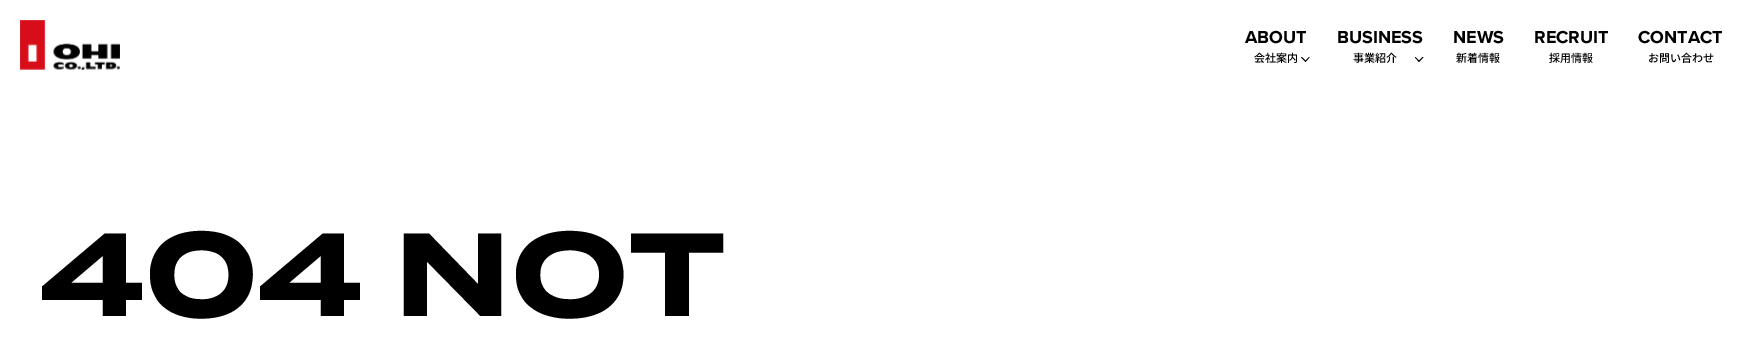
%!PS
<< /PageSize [1763 354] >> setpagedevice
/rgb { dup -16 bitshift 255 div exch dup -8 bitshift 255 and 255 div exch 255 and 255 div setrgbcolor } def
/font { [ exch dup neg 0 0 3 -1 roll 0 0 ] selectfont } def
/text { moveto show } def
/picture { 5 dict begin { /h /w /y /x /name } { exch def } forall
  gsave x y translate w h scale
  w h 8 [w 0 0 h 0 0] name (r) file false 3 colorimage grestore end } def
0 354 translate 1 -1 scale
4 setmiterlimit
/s1 { /ProximaNova-Bold 18 font 16#000000 rgb } def
/s2 { /NotoSansJP-Medium 11 font 16#000000 rgb } def
/s3 { /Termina-Bold 118 font 16#000000 rgb } def
16#FFFFFF rgb
0 0 1763 354 rectfill
(pic1.raw) 20 20 100 50 picture
s1
(ABOUT) 1245 43 text
s2
(会社案内) 1254 62 text
1309.5 57.5 moveto 1305.5 62 lineto 1305 61 lineto 1309 57 lineto closepath fill
1306 61 moveto 1305.5 62 lineto 1301 57.5 lineto 1302 57 lineto closepath fill
s1
(BUSINESS) 1337 43 text
s2
(事業紹介) 1353 62 text
1423.5 57.5 moveto 1419 62 lineto 1418.5 61 lineto 1422.5 57 lineto closepath fill
1419.5 61 moveto 1419 62 lineto 1415 57.5 lineto 1415.5 57 lineto closepath fill
s1
(NEWS) 1453 43 text
s2
(新着情報) 1456 62 text
s1
(RECRUIT) 1534 43 text
s2
(採用情報) 1549 62 text
s1
(CONTACT) 1638 43 text
s2
(お問い合わせ) 1648 62 text
s3
(404 NOT) 40 316 text
showpage
